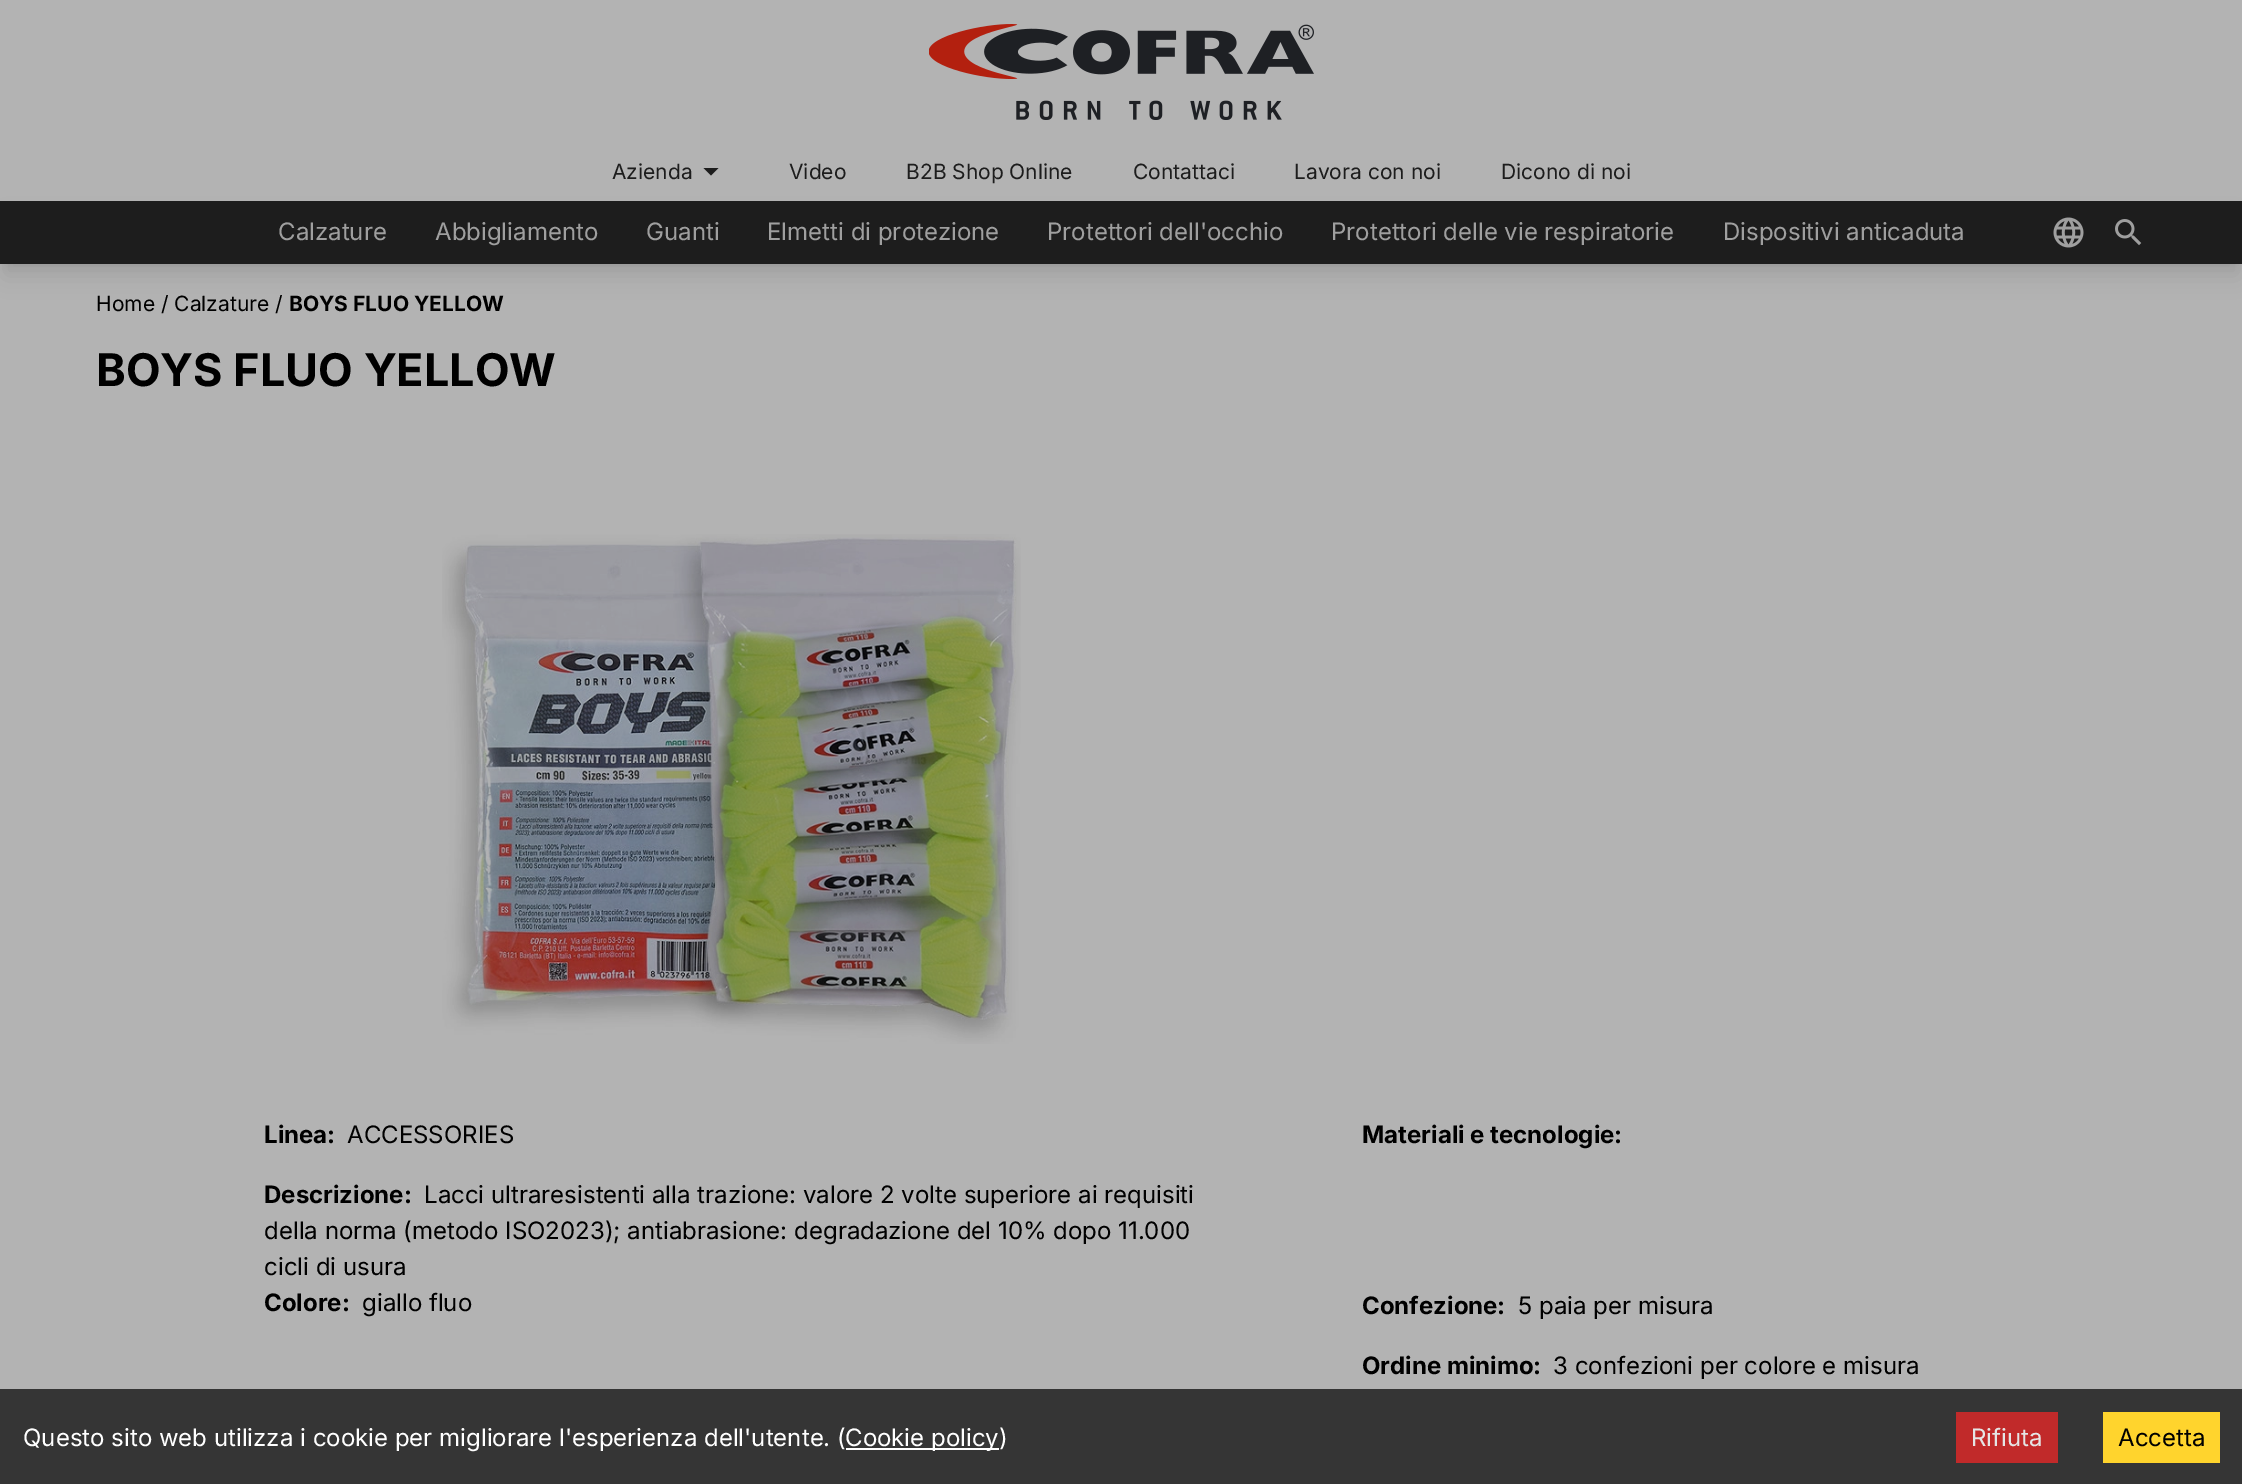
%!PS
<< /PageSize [2242 1484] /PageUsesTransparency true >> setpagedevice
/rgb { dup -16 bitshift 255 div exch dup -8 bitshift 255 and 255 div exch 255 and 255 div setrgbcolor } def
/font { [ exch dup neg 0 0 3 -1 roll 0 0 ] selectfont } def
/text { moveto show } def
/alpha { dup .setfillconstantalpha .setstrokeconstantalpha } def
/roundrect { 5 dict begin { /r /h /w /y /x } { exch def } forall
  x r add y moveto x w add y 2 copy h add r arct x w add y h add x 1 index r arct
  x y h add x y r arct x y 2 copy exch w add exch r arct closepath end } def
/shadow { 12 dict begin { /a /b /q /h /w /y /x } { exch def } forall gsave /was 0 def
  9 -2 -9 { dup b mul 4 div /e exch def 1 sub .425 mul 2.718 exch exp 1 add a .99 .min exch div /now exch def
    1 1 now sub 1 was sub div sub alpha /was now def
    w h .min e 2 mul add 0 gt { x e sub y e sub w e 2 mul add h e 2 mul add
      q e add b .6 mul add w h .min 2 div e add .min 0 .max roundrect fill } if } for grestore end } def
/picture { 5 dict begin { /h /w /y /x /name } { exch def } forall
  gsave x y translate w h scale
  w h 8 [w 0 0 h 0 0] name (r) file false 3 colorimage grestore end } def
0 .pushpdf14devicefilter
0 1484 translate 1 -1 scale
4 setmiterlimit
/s1 { /Inter-Regular 21 font 16#1D1D1D rgb } def
/s2 { /Inter-Regular 24 font 16#9F9F9F rgb } def
/s3 { /Inter-Regular 21 font 16#000000 rgb } def
/s4 { /Inter-Bold 21 font 16#000000 rgb } def
/s5 { /Inter-Bold 45 font 16#000000 rgb } def
/s6 { /Inter-Bold 24 font 16#000000 rgb } def
/s7 { /Inter-Regular 24 font 16#000000 rgb } def
/s8 { /Inter-Regular 24 font 16#FFFFFF rgb } def
/s9 { /Inter-Regular 24 font 16#E5E5E5 rgb } def
16#B3B3B3 rgb
0 0 2242 1484 rectfill
(pic1.raw) 929 24 385 96 picture
s1
(Azienda) 612 179 text
711 175.5 moveto 703.5 168 lineto 718.5 168 lineto closepath fill
(Video) 789 179 text
(B2B Shop Online) 906 179 text
(Contattaci) 1133 179 text
(Lavora con noi) 1294 179 text
(Dicono di noi) 1501 179 text
16#000000 rgb
6 213 2231 51 0 4.5 0.1 shadow
5 221 2233 54 0 11 0.1 shadow
16#1D1D1D rgb
0 201 2242 63 rectfill
s2
(Calzature) 278 240 text
(Abbigliamento) 435 240 text
(Guanti) 646 240 text
(Elmetti di protezione) 767 240 text
(Protettori dell'occhio) 1047 240 text
(Protettori delle vie respiratorie) 1331 240 text
(Dispositivi anticaduta) 1723 240 text
(pic2.raw) 2053 217 31 31 picture
(pic3.raw) 2115 219 27 27 picture
s3
(Home / Calzature /) 96 311 text
s4
(BOYS FLUO YELLOW) 289 311 text
s5
(BOYS FLUO YELLOW) 96 386 text
(pic4.raw) 442 534 579 510 picture
s6
(Linea:) 264 1143 text
s7
(ACCESSORIES) 347 1143 text
s6
(Descrizione:) 264 1203 text
s7
(Lacci ultraresistenti alla trazione: valore 2 volte superiore ai requisiti) 424 1203 text
(della norma \(metodo ISO2023\); antiabrasione: degradazione del 10% dopo 11.000) 264 1239 text
(cicli di usura) 264 1275 text
s6
(Colore:) 264 1311 text
s7
(giallo fluo) 362 1311 text
s6
(Materiali e tecnologie:) 1362 1143 text
(Confezione:) 1362 1314 text
s7
(5 paia per misura) 1518 1314 text
s6
(Ordine minimo:) 1362 1374 text
s7
(3 confezioni per colore e misura) 1553 1374 text
16#353535 rgb
0 1389 2242 95 rectfill
s8
(Questo sito web utilizza i cookie per migliorare l'esperienza dell'utente. \() 23 1446 text
846 1448 153 2 rectfill
(Cookie policy\)) 845 1446 text
16#C12A2A rgb
1956 1412 102 51 rectfill
s9
(Rifiuta) 1971 1446 text
16#FFD42D rgb
2103 1412 117 51 rectfill
s7
(Accetta) 2118 1446 text
.poppdf14devicefilter showpage
